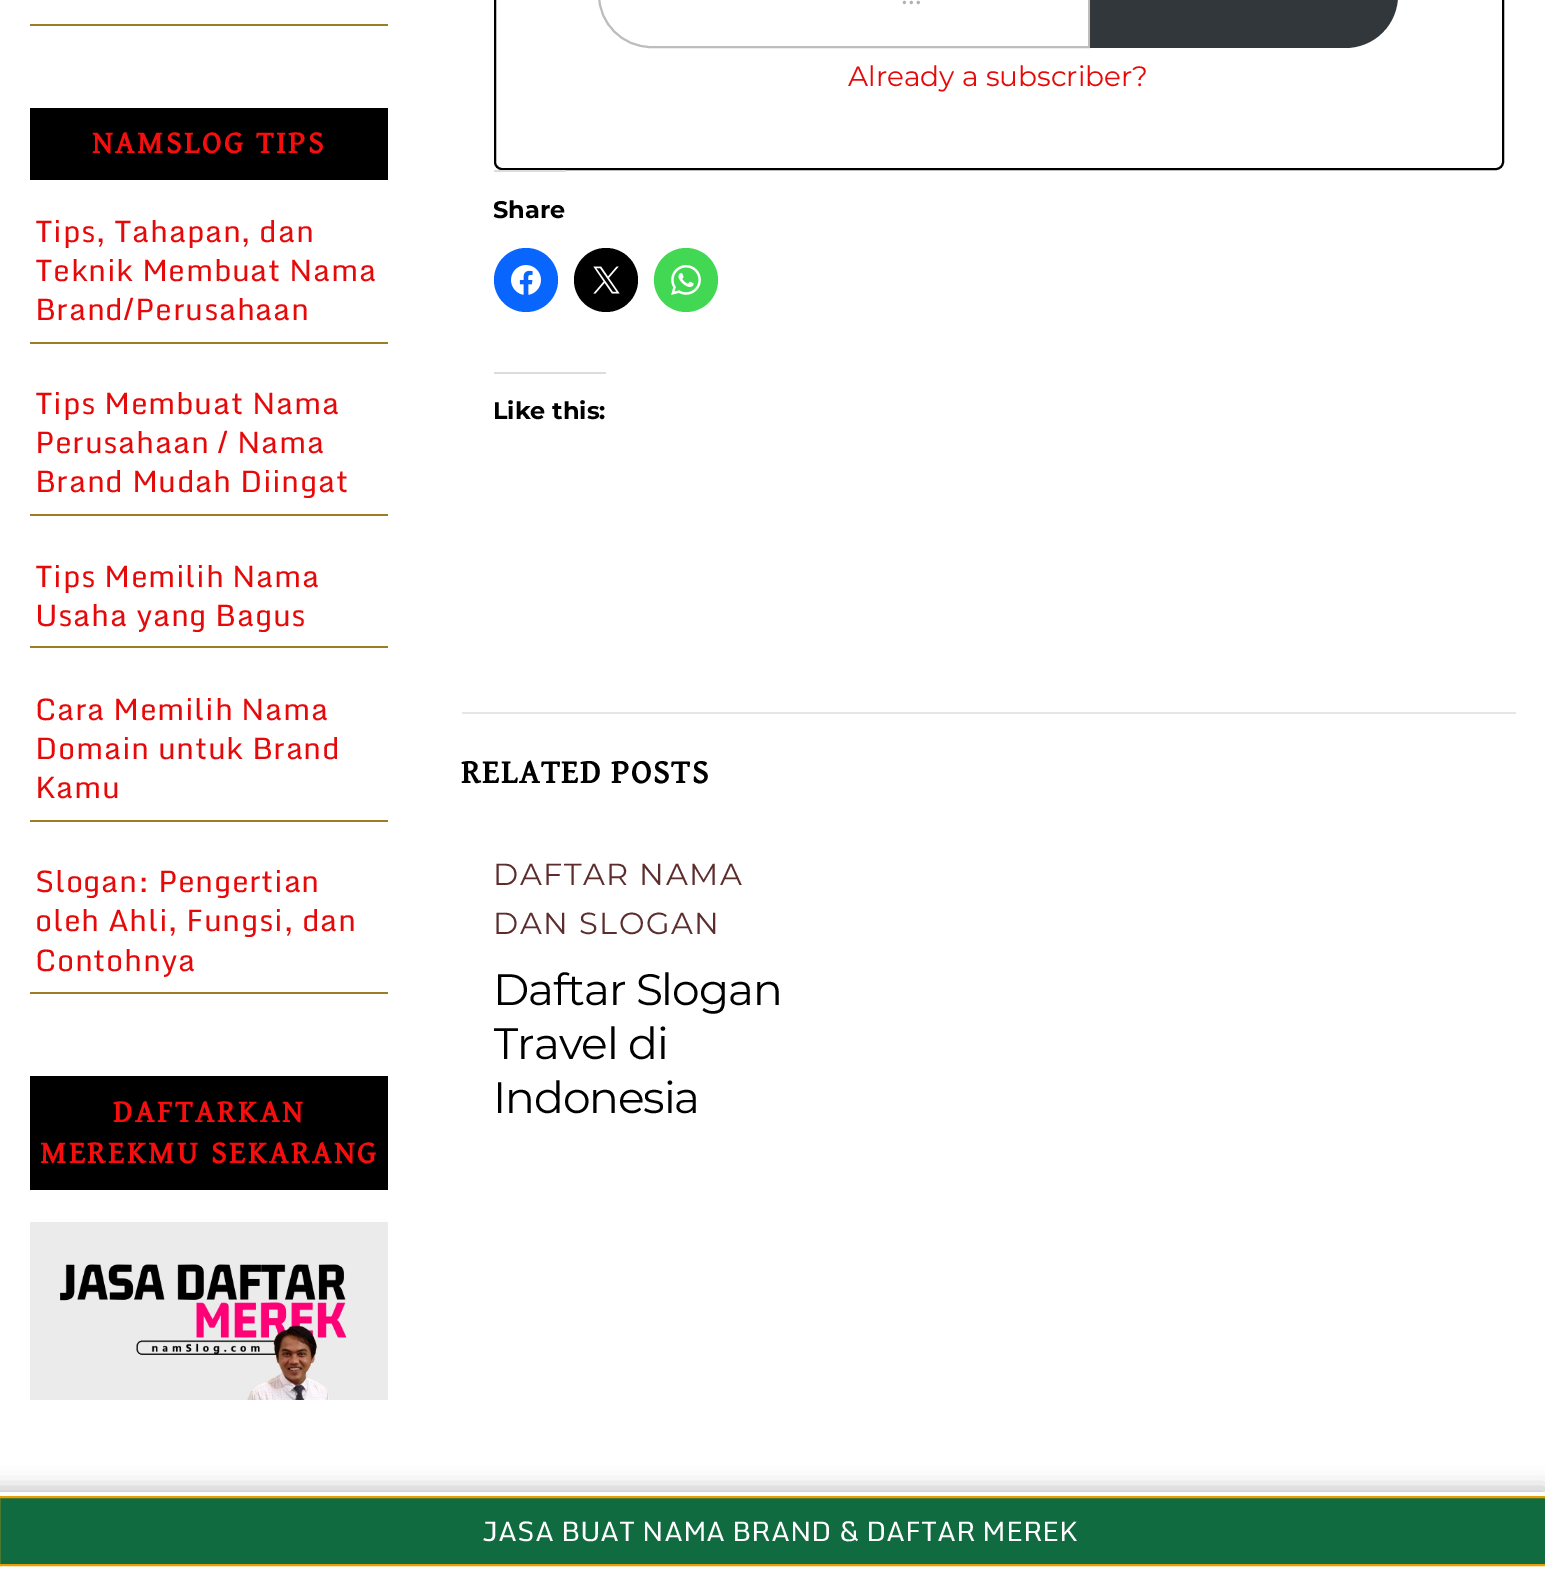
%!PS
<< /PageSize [1545 1569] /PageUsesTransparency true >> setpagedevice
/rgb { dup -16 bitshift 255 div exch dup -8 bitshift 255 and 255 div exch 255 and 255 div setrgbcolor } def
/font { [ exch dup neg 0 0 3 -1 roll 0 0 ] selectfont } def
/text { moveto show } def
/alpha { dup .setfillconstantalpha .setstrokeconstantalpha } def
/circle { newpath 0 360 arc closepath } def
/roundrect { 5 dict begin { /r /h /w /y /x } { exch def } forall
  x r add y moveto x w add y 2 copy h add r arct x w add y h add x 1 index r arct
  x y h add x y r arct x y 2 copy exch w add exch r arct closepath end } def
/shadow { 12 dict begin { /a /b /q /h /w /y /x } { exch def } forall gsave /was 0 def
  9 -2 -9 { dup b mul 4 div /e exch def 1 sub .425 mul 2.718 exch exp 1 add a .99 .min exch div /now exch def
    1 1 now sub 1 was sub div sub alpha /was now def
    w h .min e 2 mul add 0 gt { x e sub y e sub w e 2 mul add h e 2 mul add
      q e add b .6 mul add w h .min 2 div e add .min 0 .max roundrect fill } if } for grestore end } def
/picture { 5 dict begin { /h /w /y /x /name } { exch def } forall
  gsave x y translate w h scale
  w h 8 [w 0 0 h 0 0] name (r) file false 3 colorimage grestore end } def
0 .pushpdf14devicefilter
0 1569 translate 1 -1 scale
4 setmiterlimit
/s1 { /Montserrat-Regular 32 font 16#ADB1B8 rgb } def
/s2 { /Montserrat-Regular 28 font 16#E60909 rgb } def
/s3 { /Montserrat-Bold 24 font 16#000000 rgb } def
/s4 { /Monda-Regular 27.4 font 16#FFFFFF rgb } def
16#FFFFFF rgb
0 0 1545 1569 rectfill
16#9C7C25 rgb
30 24 358 2 rectfill
16#000000 rgb
30 108 358 72 rectfill
/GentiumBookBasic-Bold 31.5 font
16#F50E0E rgb
92 153 moveto 2.8 0 (NAMSLOG TIPS) ashow
16#9C7C25 rgb
30 342 358 2 rectfill
/Monda-Regular 30.1 font
16#E60909 rgb
35 242 moveto 0.6 0 (Tips, Tahapan, dan) ashow
35 281 moveto 0.6 0 (Teknik Membuat Nama) ashow
35 320 moveto 0.6 0 (Brand/Perusahaan) ashow
16#9C7C25 rgb
30 514 358 2 rectfill
16#E60909 rgb
35 414 moveto 0.6 0 (Tips Membuat Nama) ashow
35 453 moveto 0.6 0 (Perusahaan / Nama) ashow
35 492 moveto 0.6 0 (Brand Mudah Diingat) ashow
16#9C7C25 rgb
30 646 358 2 rectfill
16#E60909 rgb
35 587 moveto 0.6 0 (Tips Memilih Nama) ashow
35 626 moveto 0.6 0 (Usaha yang Bagus) ashow
16#9C7C25 rgb
30 820 358 2 rectfill
16#E60909 rgb
35 720 moveto 0.6 0 (Cara Memilih Nama) ashow
35 759 moveto 0.6 0 (Domain untuk Brand) ashow
35 798 moveto 0.6 0 (Kamu) ashow
16#9C7C25 rgb
30 992 358 2 rectfill
16#E60909 rgb
35 892 moveto 0.6 0 (Slogan: Pengertian) ashow
35 931 moveto 0.6 0 (oleh Ahli, Fungsi, dan) ashow
35 971 moveto 0.6 0 (Contohnya) ashow
16#000000 rgb
30 1076 358 114 rectfill
/GentiumBookBasic-Bold 31.5 font
16#F50E0E rgb
113 1122 moveto 2.8 0 (DAFTARKAN) ashow
40 1163 moveto 2.8 0 (MEREKMU SEKARANG) ashow
(pic1.raw) 30 1222 358 178 picture
16#000000 rgb
2 setlinewidth
495 -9 1008 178 7 roundrect stroke
16#BDBDBD rgb
651 -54 moveto 1089 -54 lineto 1089 47 lineto 651 47 lineto 622.5 47 599 23.5 599 -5 curveto 599 -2 lineto 599 -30.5 622.5 -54 651 -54 curveto closepath stroke
s1
(…) 901 4 text
16#32373C rgb
1090 -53 moveto 1345 -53 lineto 1374.5 -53 1398 -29.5 1398 0 curveto 1398 -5 lineto 1398 24.5 1374.5 48 1345 48 curveto 1090 48 lineto closepath fill
s2
(Already a subscriber?) 848 86 text
16#DCDCDE rgb
494 170 72 2 rectfill
s3
(Share) 493 218 text
16#0866FF rgb
526 280 32 circle fill
(pic2.raw) 511 265 30 30 picture
16#000000 rgb
606 280 32 circle fill
(pic3.raw) 593 266 27 28 picture
16#43D854 rgb
686 280 32 circle fill
(pic4.raw) 671 265 30 30 picture
16#DCDCDE rgb
494 372 112 2 rectfill
s3
(Like this:) 493 419 text
16#E6E6E6 rgb
462 712 1054 2 rectfill
/GentiumBookBasic-Bold 33.5 font
16#000000 rgb
461 783 moveto 1.7 0 (RELATED POSTS) ashow
/Montserrat-Regular 30.5 font
16#5C2D2D rgb
493 885 moveto 1.5 0 (DAFTAR NAMA) ashow
493 934 moveto 1.5 0 (DAN SLOGAN) ashow
/Montserrat-Regular 44 font
16#000000 rgb
493 1005 moveto -1.1 0 (Daftar Slogan) ashow
gsave
494 850 292 320 rectclip
493 1059 moveto -1.1 0 (Travel di) ashow
grestore
493 1113 moveto -1.1 0 (Indonesia) ashow
16#C0C0C0 rgb
-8 1488 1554 78 0 10 1 shadow
16#FFFFFF rgb
0 1492 1545 77 rectfill
16#116B40 rgb
-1 1497 moveto 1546 1497 lineto 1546 1565 lineto -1 1565 lineto closepath gsave fill grestore
16#E89F02 rgb
stroke
s4
(JASA BUAT NAMA BRAND & DAFTAR MEREK) 482 1541 text
.poppdf14devicefilter showpage
